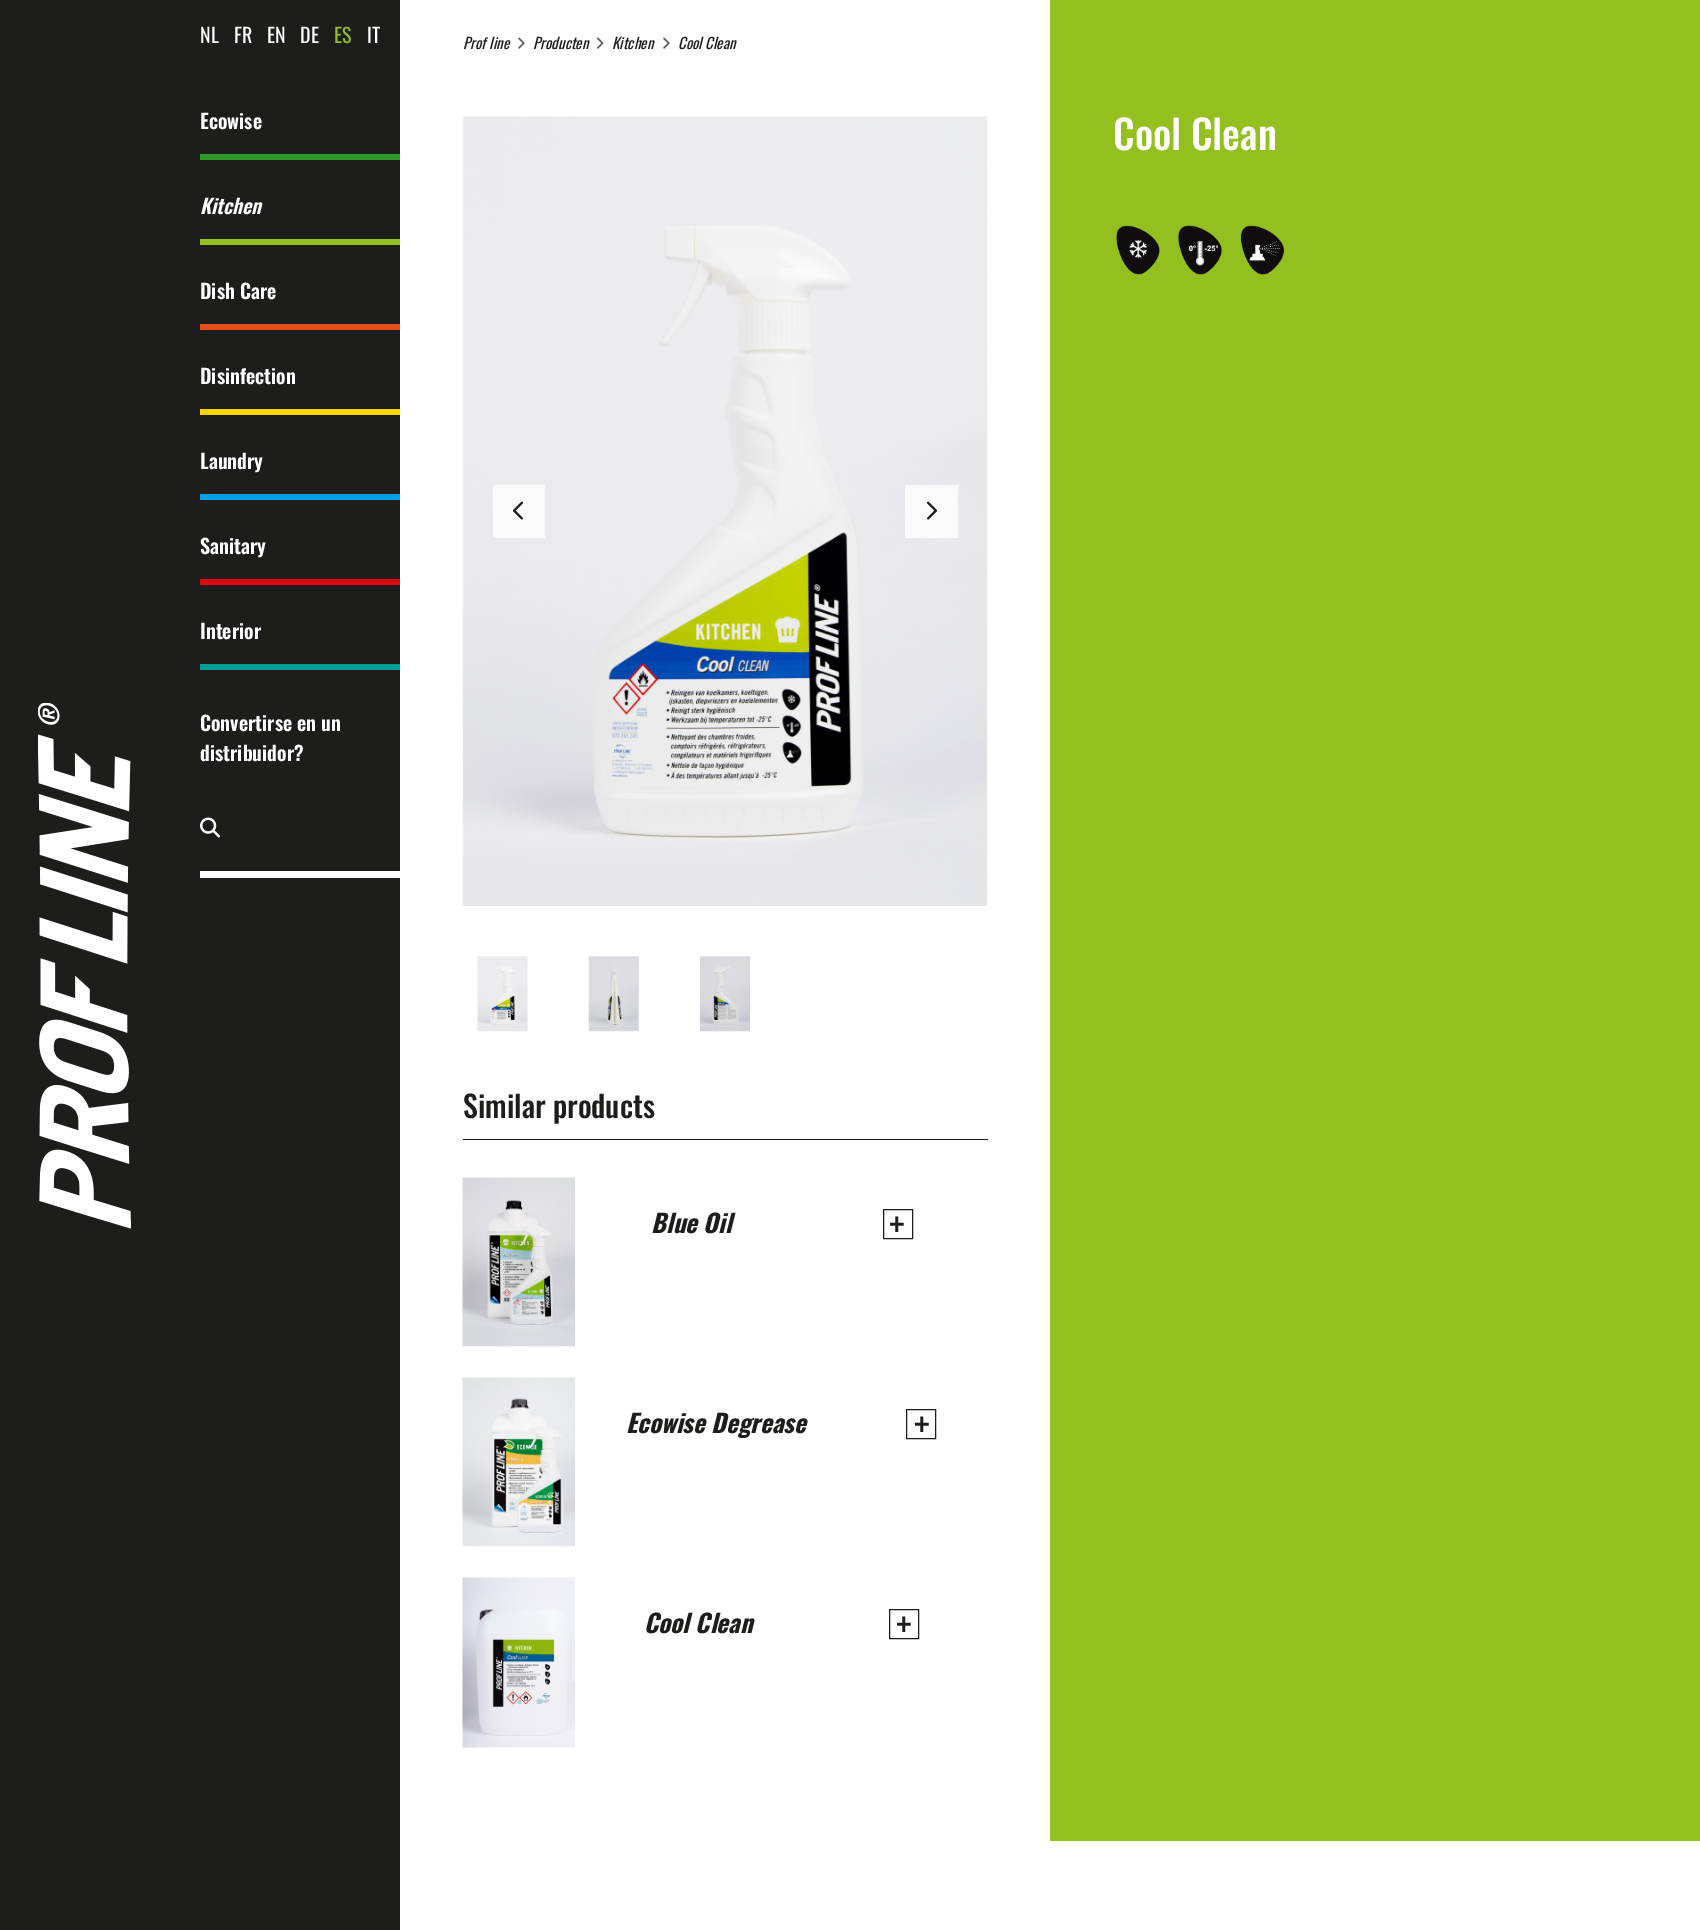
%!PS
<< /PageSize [1700 1930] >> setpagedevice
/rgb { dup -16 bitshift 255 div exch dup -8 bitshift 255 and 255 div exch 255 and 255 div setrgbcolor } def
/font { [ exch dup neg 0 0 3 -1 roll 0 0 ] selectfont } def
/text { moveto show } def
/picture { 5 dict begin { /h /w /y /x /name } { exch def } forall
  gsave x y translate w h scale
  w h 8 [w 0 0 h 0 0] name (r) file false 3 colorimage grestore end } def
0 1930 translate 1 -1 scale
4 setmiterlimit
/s1 { /Oswald-Regular 20 font 16#FFFFFF rgb } def
/s2 { /Oswald-Regular 20 font 16#93C01F rgb } def
/s3 { /Oswald-SemiBold 20 font 16#FFFFFF rgb } def
/s4 { /Oswald-SemiBoldItalic 20 font 16#FFFFFF rgb } def
/s5 { /Oswald-Italic 15 font 16#1D1D1B rgb } def
/s6 { /Oswald-Medium 30 font 16#1D1D1B rgb } def
/s7 { /Oswald-BoldItalic 25 font 16#1D1D1B rgb } def
/s8 { /Oswald-Regular 38 font 16#1D1D1B rgb } def
/s9 { /Oswald-Medium 40 font 16#FFFFFF rgb } def
16#FFFFFF rgb
0 0 1700 1930 rectfill
16#1D1D1B rgb
0 0 400 1930 rectfill
s1
(NL) 200 43 text
(FR) 234 43 text
(EN) 267 43 text
(DE) 300 43 text
s2
(ES) 334 43 text
s1
(IT) 367 43 text
16#2F982A rgb
200 154 200 6 rectfill
s3
(Ecowise) 200 129 text
16#93C01F rgb
200 239 200 6 rectfill
s4
(Kitchen) 200 214 text
16#E84E1B rgb
200 324 200 6 rectfill
s3
(Dish Care) 200 299 text
16#FFD400 rgb
200 409 200 6 rectfill
s3
(Disinfection) 200 384 text
16#009EE2 rgb
200 494 200 6 rectfill
s3
(Laundry) 200 469 text
16#E20613 rgb
200 579 200 6 rectfill
s3
(Sanitary) 200 554 text
16#00A099 rgb
200 664 200 6 rectfill
s3
(Interior) 200 639 text
(Convertirse en un) 200 731 text
(distribuidor?) 200 761 text
200 871 200 7 rectfill
(pic1.raw) 200 817 20 21 picture
(pic2.raw) 38 703 93 526 picture
s5
(Prof line) 463 49 text
(pic3.raw) 518 37 7 12 picture
(Producten) 533 49 text
(pic4.raw) 596 37 8 12 picture
(Kitchen) 612 49 text
(pic3.raw) 663 37 7 12 picture
(Cool Clean) 678 49 text
(pic5.raw) 462 116 526 790 picture
16#FAFAFA rgb
493 485 52 53 rectfill
(pic6.raw) 512 501 11 19 picture
905 485 53 53 rectfill
(pic7.raw) 927 501 11 19 picture
(pic8.raw) 477 956 51 76 picture
(pic9.raw) 588 956 51 76 picture
(pic10.raw) 700 956 50 76 picture
16#1D1D1D rgb
463 1139 525 1 rectfill
s6
(Similar products) 463 1118 text
(pic11.raw) 462 1177 113 170 picture
s7
(Blue Oil) 651 1233 text
883.5 1209.5 29 29 rectstroke
s8
(+) 889 1240 text
(pic12.raw) 462 1377 113 170 picture
s7
(Ecowise Degrease) 626 1433 text
906.5 1409.5 29 29 rectstroke
s8
(+) 914 1440 text
(pic13.raw) 462 1577 113 171 picture
s7
(Cool Clean) 644 1633 text
889.5 1609.5 29 29 rectstroke
s8
(+) 896 1640 text
16#93C01F rgb
1050 0 650 1841 rectfill
s9
(Cool Clean) 1113 150 text
(pic14.raw) 1116 225 44 50 picture
(pic15.raw) 1178 225 44 50 picture
(pic16.raw) 1240 225 45 50 picture
showpage
